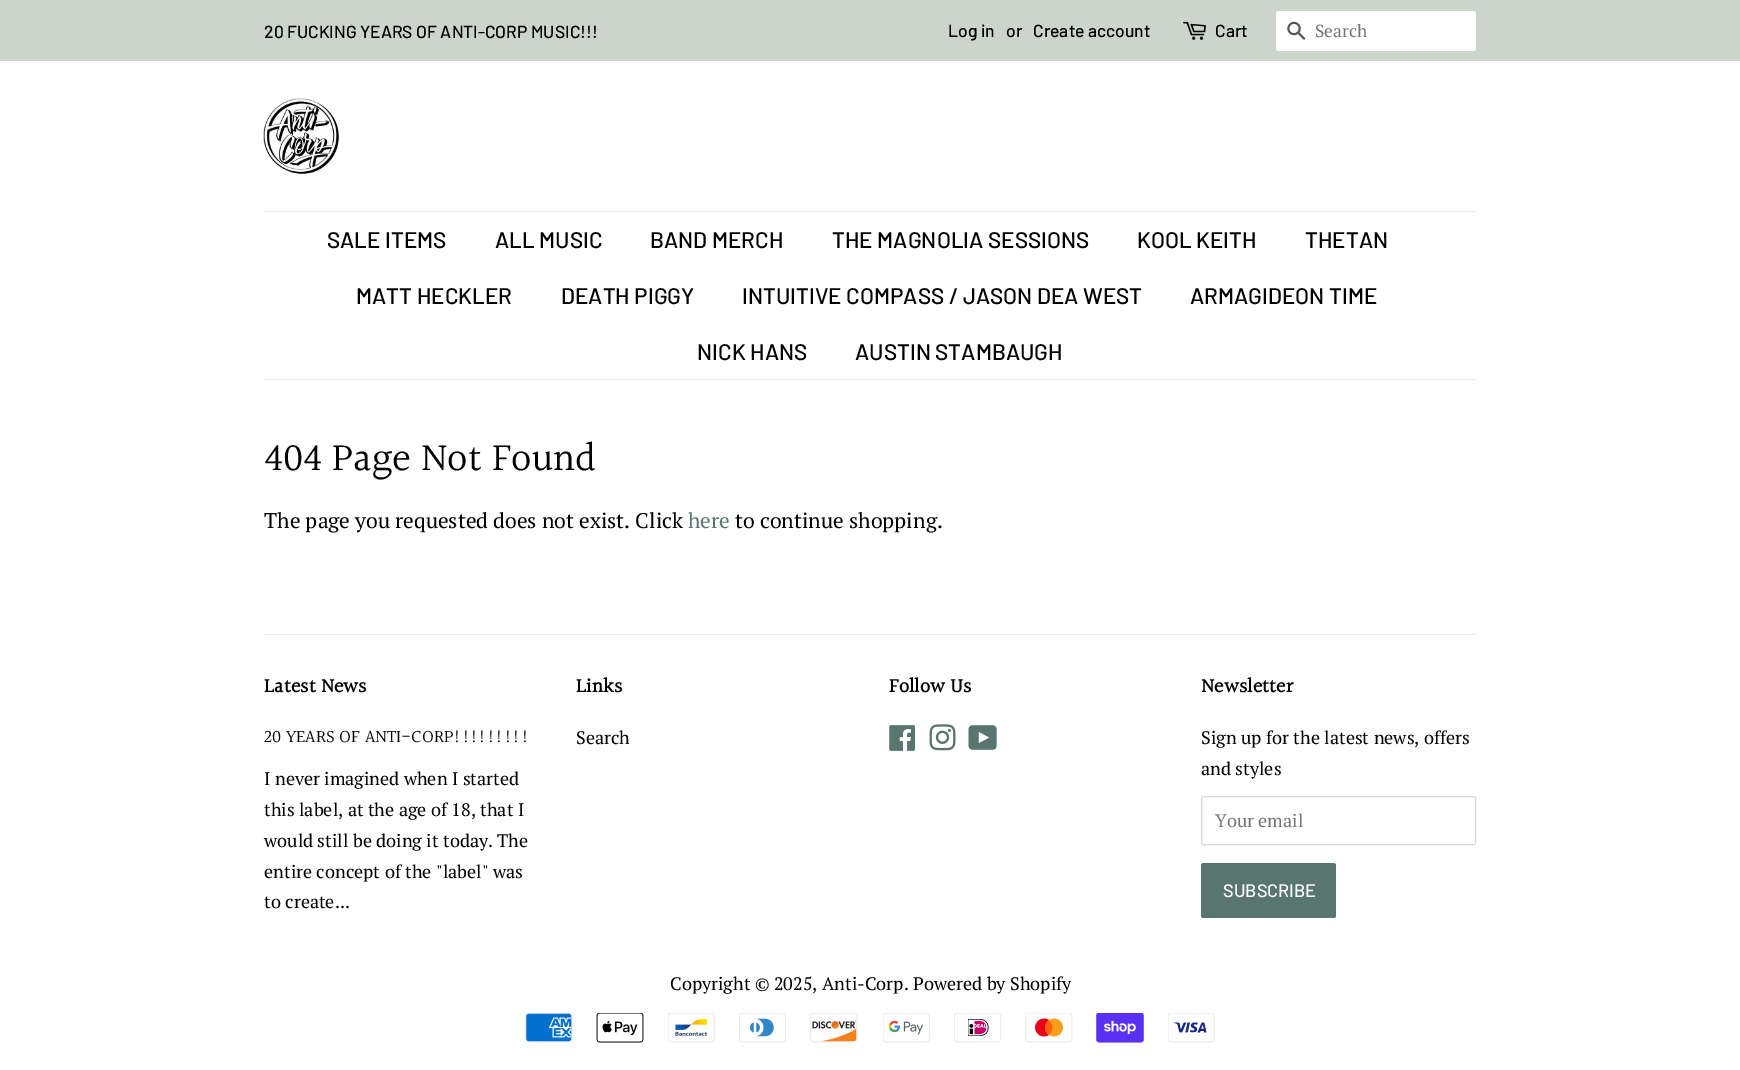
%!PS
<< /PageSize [1740 1070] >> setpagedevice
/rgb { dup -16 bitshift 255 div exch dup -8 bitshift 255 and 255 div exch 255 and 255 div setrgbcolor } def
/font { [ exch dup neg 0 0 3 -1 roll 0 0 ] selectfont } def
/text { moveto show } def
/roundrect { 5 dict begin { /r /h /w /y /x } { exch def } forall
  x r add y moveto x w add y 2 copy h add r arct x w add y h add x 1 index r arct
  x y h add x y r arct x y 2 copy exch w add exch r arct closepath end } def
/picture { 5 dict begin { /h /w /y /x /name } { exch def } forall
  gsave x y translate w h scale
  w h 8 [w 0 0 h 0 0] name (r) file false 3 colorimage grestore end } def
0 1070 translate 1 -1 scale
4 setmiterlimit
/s1 { /Barlow-Medium 17.5 font 16#000000 rgb } def
/s2 { /PTSerif-Regular 17.5 font 16#757575 rgb } def
/s3 { /Barlow-Medium 22.5 font 16#000000 rgb } def
/s4 { /Halant-Regular 40 font 16#000000 rgb } def
/s5 { /PTSerif-Regular 21.25 font 16#000000 rgb } def
/s6 { /PTSerif-Regular 21.25 font 16#59756F rgb } def
/s7 { /Halant-Bold 20 font 16#000000 rgb } def
/s8 { /Halant-Regular 18.1 font 16#000000 rgb } def
/s9 { /PTSerif-Regular 18.1 font 16#000000 rgb } def
/s10 { /PTSerif-Regular 18.1 font 16#757575 rgb } def
/s11 { /Barlow-Medium 18.1 font 16#FFFFFF rgb } def
16#FFFFFF rgb
0 0 1740 1070 rectfill
16#CBD5CC rgb
0 0 1740 61 rectfill
s1
(20 FUCKING YEARS OF ANTI-CORP MUSIC!!!) 264 38 text
(Log in) 948 37 text
(or) 1006 37 text
(Create account) 1033 37 text
(pic1.raw) 1183 21 23 19 picture
(Cart) 1215 37 text
16#FFFFFF rgb
1276 11 200 40 2.5 roundrect fill
(pic2.raw) 1287 21 19 19 picture
s2
(Search) 1315 37 text
(pic3.raw) 263 98 76 76 picture
16#EBEBEB rgb
264 211 1212 1 rectfill
264 379 1212 1 rectfill
s3
(SALE ITEMS) 327 248 text
(ALL MUSIC) 495 248 text
(BAND MERCH) 650 248 text
(THE MAGNOLIA SESSIONS) 832 248 text
(KOOL KEITH) 1137 248 text
(THETAN) 1305 248 text
(MATT HECKLER) 356 304 text
(DEATH PIGGY) 561 304 text
(INTUITIVE COMPASS / JASON DEA WEST) 742 304 text
(ARMAGIDEON TIME) 1190 304 text
(NICK HANS) 697 360 text
(AUSTIN STAMBAUGH) 855 360 text
s4
(404 Page Not Found) 264 472 text
s5
(The page you requested does not exist. Click) 264 528 text
s6
(here) 688 528 text
s5
(to continue shopping.) 735 528 text
16#EBEBEB rgb
264 634 1212 1 rectfill
s7
(Latest News) 264 693 text
s8
(20 YEARS OF ANTI-CORP!!!!!!!!!) 264 743 text
s9
(I never imagined when I started) 264 785 text
(this label, at the age of 18, that I) 264 816 text
(would still be doing it today. The) 264 847 text
(entire concept of the "label" was) 264 878 text
(to create...) 264 908 text
s7
(Links) 576 693 text
s9
(Search) 576 744 text
s7
(Follow Us) 889 693 text
(pic4.raw) 889 725 26 26 picture
(pic5.raw) 929 724 27 27 picture
(pic6.raw) 968 725 29 25 picture
(Newsletter) 1201 693 text
s9
(Sign up for the latest news, offers) 1201 744 text
(and styles) 1201 775 text
16#D9D9D9 rgb
1201.5 796.5 274 48 2 roundrect stroke
s10
(Your email) 1215 827 text
16#59756F rgb
1201 863 135 55 2.5 roundrect fill
s11
(SUBSCRIBE) 1223 897 text
s9
(Copyright © 2025, Anti-Corp. Powered by Shopify) 670 990 text
(pic7.raw) 525 1013 48 30 picture
(pic8.raw) 596 1013 48 30 picture
(pic9.raw) 668 1013 47 30 picture
(pic10.raw) 739 1013 47 30 picture
(pic11.raw) 810 1013 48 30 picture
(pic12.raw) 883 1013 47 30 picture
(pic13.raw) 954 1013 47 30 picture
(pic14.raw) 1025 1013 48 30 picture
(pic15.raw) 1096 1013 48 30 picture
(pic16.raw) 1168 1013 47 30 picture
showpage
